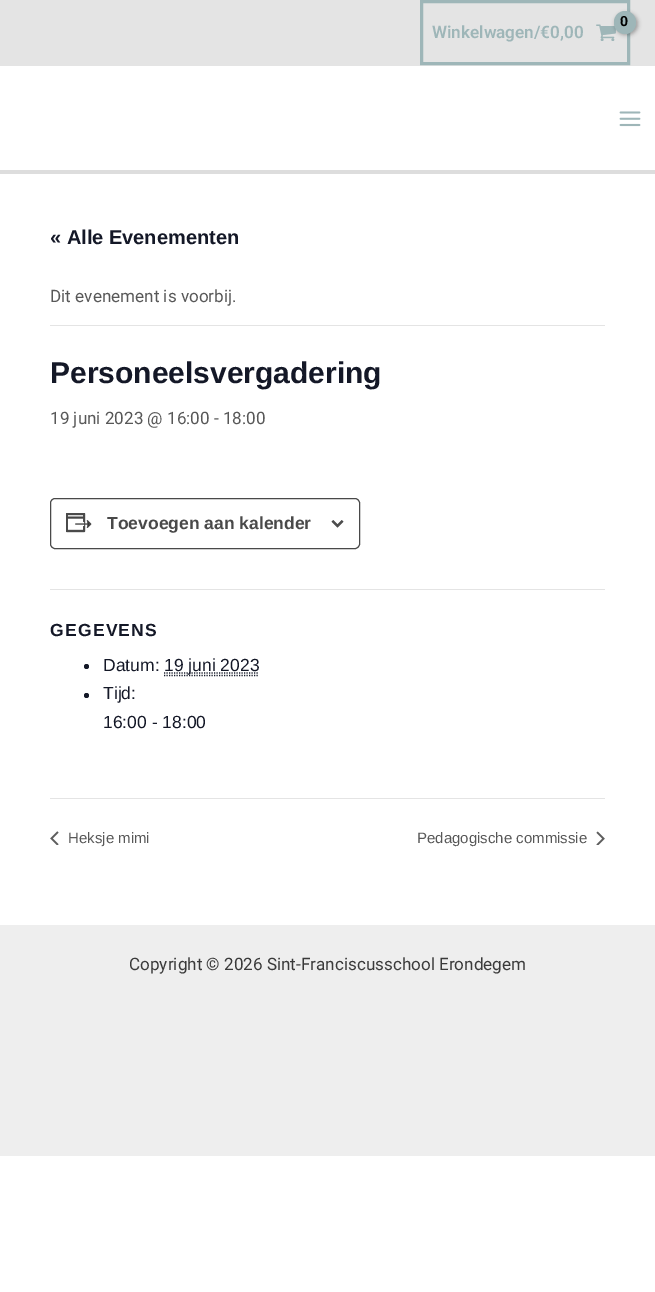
%!PS
<< /PageSize [655 1292] /PageUsesTransparency true >> setpagedevice
/rgb { dup -16 bitshift 255 div exch dup -8 bitshift 255 and 255 div exch 255 and 255 div setrgbcolor } def
/font { [ exch dup neg 0 0 3 -1 roll 0 0 ] selectfont } def
/text { moveto show } def
/alpha { dup .setfillconstantalpha .setstrokeconstantalpha } def
/circle { newpath 0 360 arc closepath } def
/roundrect { 5 dict begin { /r /h /w /y /x } { exch def } forall
  x r add y moveto x w add y 2 copy h add r arct x w add y h add x 1 index r arct
  x y h add x y r arct x y 2 copy exch w add exch r arct closepath end } def
/shadow { 12 dict begin { /a /b /q /h /w /y /x } { exch def } forall gsave /was 0 def
  9 -2 -9 { dup b mul 4 div /e exch def 1 sub .425 mul 2.718 exch exp 1 add a .99 .min exch div /now exch def
    1 1 now sub 1 was sub div sub alpha /was now def
    w h .min e 2 mul add 0 gt { x e sub y e sub w e 2 mul add h e 2 mul add
      q e add b .6 mul add w h .min 2 div e add .min 0 .max roundrect fill } if } for grestore end } def
/picture { 5 dict begin { /h /w /y /x /name } { exch def } forall
  gsave x y translate w h scale
  w h 8 [w 0 0 h 0 0] name (r) file false 3 colorimage grestore end } def
0 .pushpdf14devicefilter
0 1292 translate 1 -1 scale
4 setmiterlimit
/s1 { /Roboto-SemiBold 17.1 font 16#9EB6B8 rgb } def
/s2 { /LiberationSans-Bold 20 font 16#141827 rgb } def
/s3 { /Roboto-Regular 17.1 font 16#585858 rgb } def
/s4 { /LiberationSans-Bold 30 font 16#141827 rgb } def
/s5 { /LiberationSans-Bold 17.5 font 16#494949 rgb } def
/s6 { /LiberationSans-Regular 17.5 font 16#141827 rgb } def
/s7 { /LiberationSans-Regular 15 font 16#585858 rgb } def
/s8 { /Roboto-Regular 17.1 font 16#3A3A3A rgb } def
16#FFFFFF rgb
0 0 655 1292 rectfill
16#E4E4E4 rgb
0 0 655 66 rectfill
16#9EB6B8 rgb
3 setlinewidth
421.5 1.5 207 62 rectstroke
(pic1.raw) 596 24 20 17 picture
16#000000 rgb
615 13 23 22 11 2 0.3 shadow
16#9EB6B8 rgb
614 11 22 23 11 roundrect fill
/Roboto-Bold 14 font
16#000000 rgb
620 26 moveto -1 0 (0) ashow
s1
(Winkelwagen/€0,00) 432 38 text
16#DDDDDD rgb
0 170 655 4 rectfill
(pic2.raw) 619 111 22 16 picture
s2
(« Alle Evenementen) 50 244 text
16#E4E4E4 rgb
50 325 555 1 rectfill
s3
(Dit evenement is voorbij.) 50 302 text
s4
(Personeelsvergadering) 50 383 text
s3
(19 juni 2023 @ 16:00 - 18:00) 50 424 text
16#494949 rgb
1 setlinewidth
50.5 498.5 309 50 4.5 roundrect stroke
(pic3.raw) 66 513 26 20 picture
s5
(Toevoegen aan kalender) 107 529 text
(pic4.raw) 331 520 13 8 picture
16#E4E4E4 rgb
50 589 555 1 rectfill
16#141827 rgb
50 636 moveto 1.25 0 (GEGEVENS) ashow
86.5 666.5 2.5 circle fill
s6
(Datum:) 103 671 text
1.2 setlinewidth
[1.25 1.25] 0 setdash
164 675.5 moveto 259 675.5 lineto stroke
164 673 moveto 259 673 lineto stroke
(19 juni 2023) 164 671 text
86.5 695.5 2.5 circle fill
(Tijd:) 103 699 text
(16:00 - 18:00) 103 728 text
16#E4E4E4 rgb
50 798 555 1 rectfill
(pic5.raw) 50 831 9 14 picture
s7
(Heksje mimi) 68 843 text
(Pedagogische commissie) 417 843 text
(pic6.raw) 596 831 9 14 picture
16#EEEEEE rgb
0 925 655 231 rectfill
s8
(Copyright © 2026 Sint-Franciscusschool Erondegem) 129 970 text
.poppdf14devicefilter showpage
